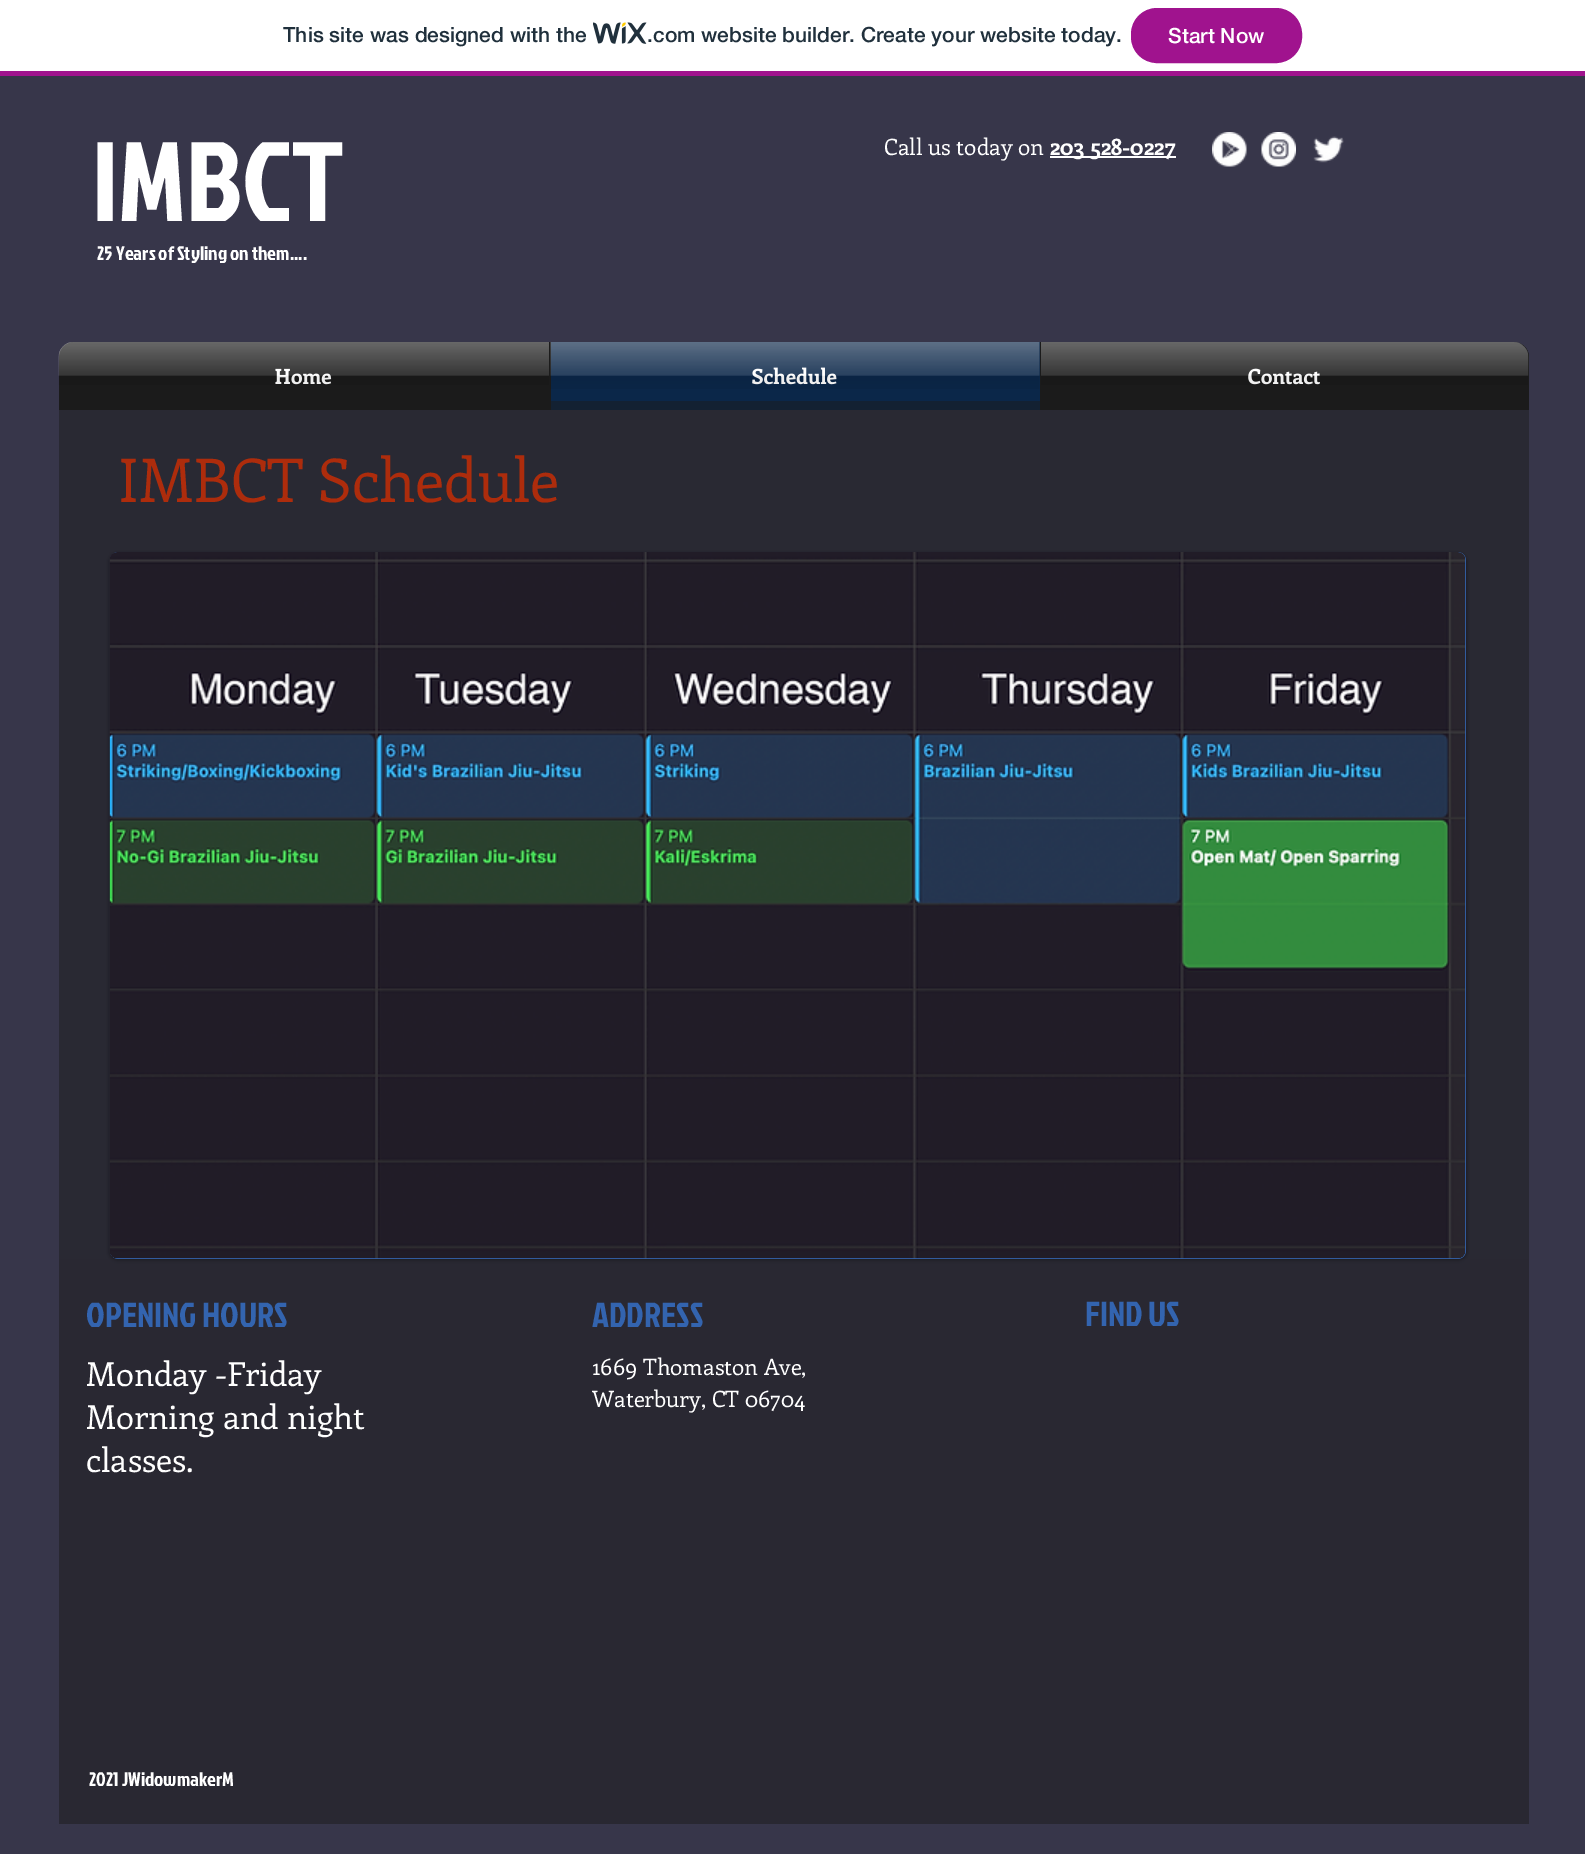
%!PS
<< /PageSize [1585 1854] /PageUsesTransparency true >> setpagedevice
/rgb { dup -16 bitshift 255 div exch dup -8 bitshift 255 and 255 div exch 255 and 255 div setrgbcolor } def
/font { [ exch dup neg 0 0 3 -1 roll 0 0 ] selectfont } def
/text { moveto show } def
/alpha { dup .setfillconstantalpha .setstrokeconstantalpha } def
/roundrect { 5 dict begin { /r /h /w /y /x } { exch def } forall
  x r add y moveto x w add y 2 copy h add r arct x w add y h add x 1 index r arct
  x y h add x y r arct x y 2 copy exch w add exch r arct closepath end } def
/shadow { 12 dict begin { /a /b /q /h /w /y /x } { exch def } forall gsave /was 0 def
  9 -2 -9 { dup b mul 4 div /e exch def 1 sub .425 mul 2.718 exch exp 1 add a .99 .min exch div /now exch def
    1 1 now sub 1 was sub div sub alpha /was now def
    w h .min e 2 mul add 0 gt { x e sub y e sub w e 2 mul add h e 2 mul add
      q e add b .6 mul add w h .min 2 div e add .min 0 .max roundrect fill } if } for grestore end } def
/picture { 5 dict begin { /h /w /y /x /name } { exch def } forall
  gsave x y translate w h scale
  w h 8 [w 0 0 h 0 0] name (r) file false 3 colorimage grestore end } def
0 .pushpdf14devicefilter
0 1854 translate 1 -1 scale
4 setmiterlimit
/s1 { /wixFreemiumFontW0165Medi-Medium 21 font 16#20303C rgb } def
/s2 { /wixFreemiumFontW0165Medi-Medium 21 font 16#FFFFFF rgb } def
/s3 { /JockeyOne-Regular 112.5 font 16#FFFFFF rgb } def
/s4 { /Enriqueta-Regular 22.5 font 16#FFFFFF rgb } def
/s5 { /Enriqueta-Bold 22.5 font 16#FFFFFF rgb } def
/s6 { /JockeyOne-Regular 19.5 font 16#FFFFFF rgb } def
/s7 { /Enriqueta-Bold 21 font 16#FFFFFF rgb } def
/s8 { /Enriqueta-Regular 60 font 16#AD2C0C rgb } def
/s9 { /JockeyOne-Regular 34.5 font 16#3364AF rgb } def
/s10 { /Enriqueta-Regular 33 font 16#FFFFFF rgb } def
16#FFFFFF rgb
0 0 1585 1854 rectfill
16#A0138E rgb
0 71 1585 5 rectfill
s1
(This site was designed with the) 283 42 text
(pic1.raw) 593 22 54 22 picture
(.com website builder. Create your website today.) 647 42 text
16#A0138E rgb
1132 9 169 53 25 roundrect gsave fill grestore
2 setlinewidth
stroke
s2
(Start Now) 1168 43 text
16#37364A rgb
0 76 1585 1778 rectfill
16#292933 rgb
59 410 1470 849 rectfill
s3
(IMBCT) 92 221 text
s4
(Call us today on) 884 155 text
1050 156 126 2 rectfill
s5
(203 528-0227) 1050 155 text
(pic2.raw) 1212 132 35 35 picture
(pic3.raw) 1261 132 35 35 picture
(pic4.raw) 1313 136 31 27 picture
s6
(25 Years of Styling on them....) 97 260 text
(pic5.raw) 58 342 1471 34 picture
16#1B1B1B rgb
74 342 moveto 549 342 lineto 549 410 lineto 59 410 lineto 59 357 lineto 59 348.5 65.5 342 74 342 curveto closepath fill
s7
(Home) 274 384 text
(pic6.raw) 58 342 491 43 picture
16#0B2749 rgb
551 342 489 59 rectfill
16#132132 rgb
551 401 489 9 rectfill
16#1B1B1B rgb
549 342 2 68 rectfill
s7
(Schedule) 752 384 text
(pic7.raw) 550 342 490 47 picture
16#1B1B1B rgb
1040 342 moveto 1514 342 lineto 1522.5 342 1529 348.5 1529 357 curveto 1529 410 lineto 1040 410 lineto closepath fill
s7
(Contact) 1248 384 text
(pic8.raw) 1041 342 488 43 picture
s8
(IMBCT Schedule) 118 502 text
16#000000 rgb
110 554 1356 706 8 2 0.5 shadow
16#3364AF rgb
110 552 1356 707 8 roundrect fill
(pic9.raw) 109 552 1357 707 picture
0.5 alpha
16#1B1B1B rgb
59 1259 1470 565 rectfill
1 alpha
s9
(OPENING HOURS) 86 1327 text
(ADDRESS) 592 1327 text
(FIND US) 1085 1326 text
s10
(Monday -Friday) 86 1386 text
(Morning and night) 86 1429 text
(classes.) 86 1472 text
s4
(1669 Thomaston Ave,) 592 1375 text
(Waterbury, CT 06704) 592 1407 text
s6
(2021 JWidowmakerM) 89 1786 text
.poppdf14devicefilter showpage
